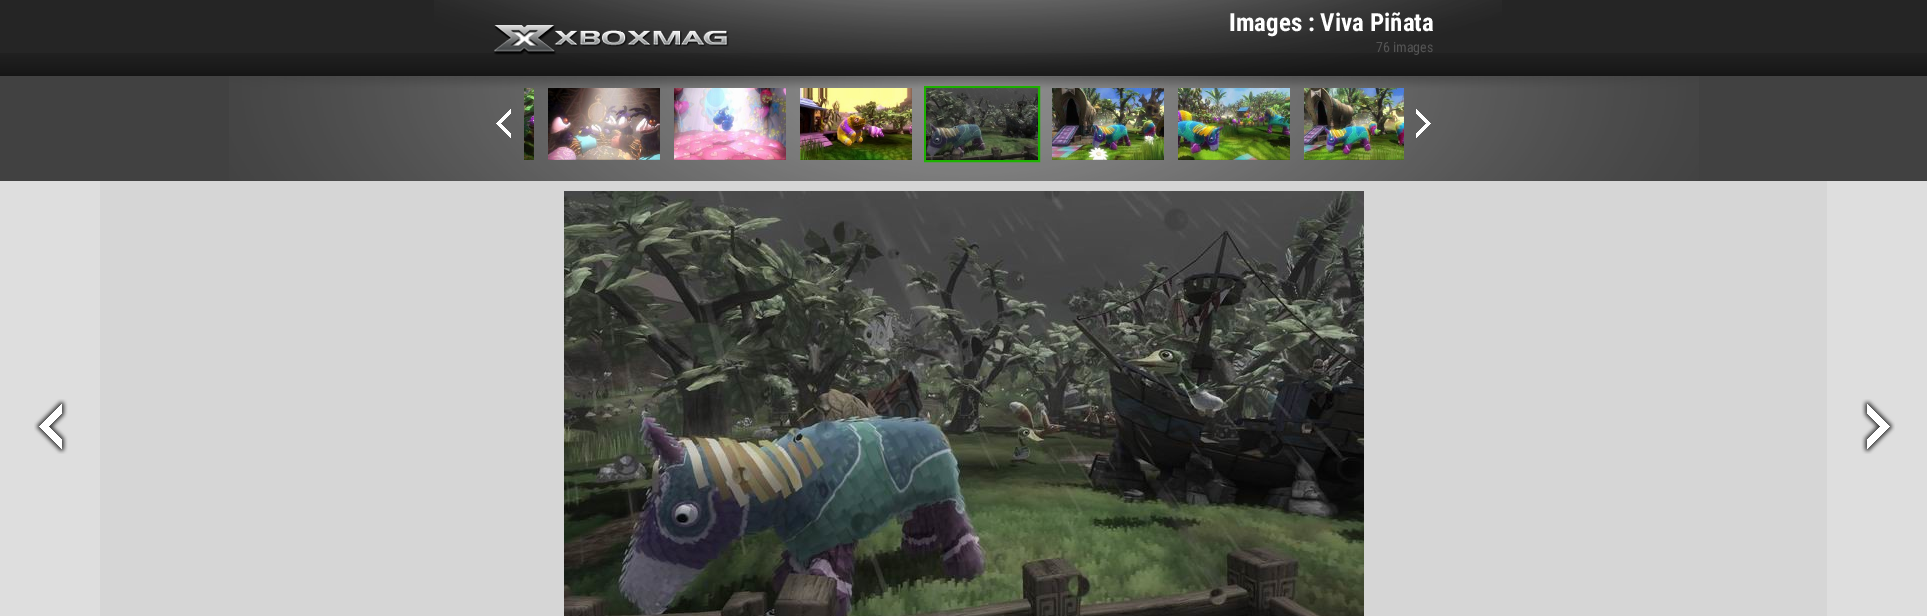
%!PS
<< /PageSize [1927 616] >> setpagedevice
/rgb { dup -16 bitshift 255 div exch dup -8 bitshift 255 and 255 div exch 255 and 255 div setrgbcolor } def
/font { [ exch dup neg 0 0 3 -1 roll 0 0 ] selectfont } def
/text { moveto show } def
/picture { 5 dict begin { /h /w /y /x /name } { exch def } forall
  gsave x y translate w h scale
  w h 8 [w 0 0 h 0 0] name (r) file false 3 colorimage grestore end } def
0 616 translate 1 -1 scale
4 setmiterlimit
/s1 { /RobotoCondensed-Bold 25 font 16#FFFFFF rgb } def
/s2 { /RobotoCondensed-Regular 14 font 16#545454 rgb } def
16#D6D6D6 rgb
0 0 1927 616 rectfill
16#252525 rgb
0 0 1927 53 rectfill
(pic1.raw) 0 53 1927 23 picture
(pic2.raw) 434 0 1068 76 picture
(pic3.raw) 494 25 235 30 picture
s1
(Images : Viva Piñata) 1229 31 text
s2
(76 images) 1376 52 text
16#414141 rgb
0 76 1927 105 rectfill
(pic4.raw) 229 76 1470 105 picture
(pic5.raw) 496 109 15 29 picture
(pic6.raw) 524 88 10 72 picture
(pic7.raw) 548 88 112 72 picture
(pic8.raw) 674 88 112 72 picture
(pic9.raw) 800 88 112 72 picture
16#1DB100 rgb
2 setlinewidth
925 87 114 74 rectstroke
(pic10.raw) 926 88 112 72 picture
(pic11.raw) 1052 88 112 72 picture
(pic12.raw) 1178 88 112 72 picture
(pic13.raw) 1304 88 100 72 picture
(pic14.raw) 1416 109 15 29 picture
16#DEDEDE rgb
0 181 100 435 rectfill
(pic15.raw) 34 399 34 55 picture
(pic16.raw) 564 191 800 425 picture
1827 181 100 435 rectfill
(pic17.raw) 1861 399 34 55 picture
showpage
